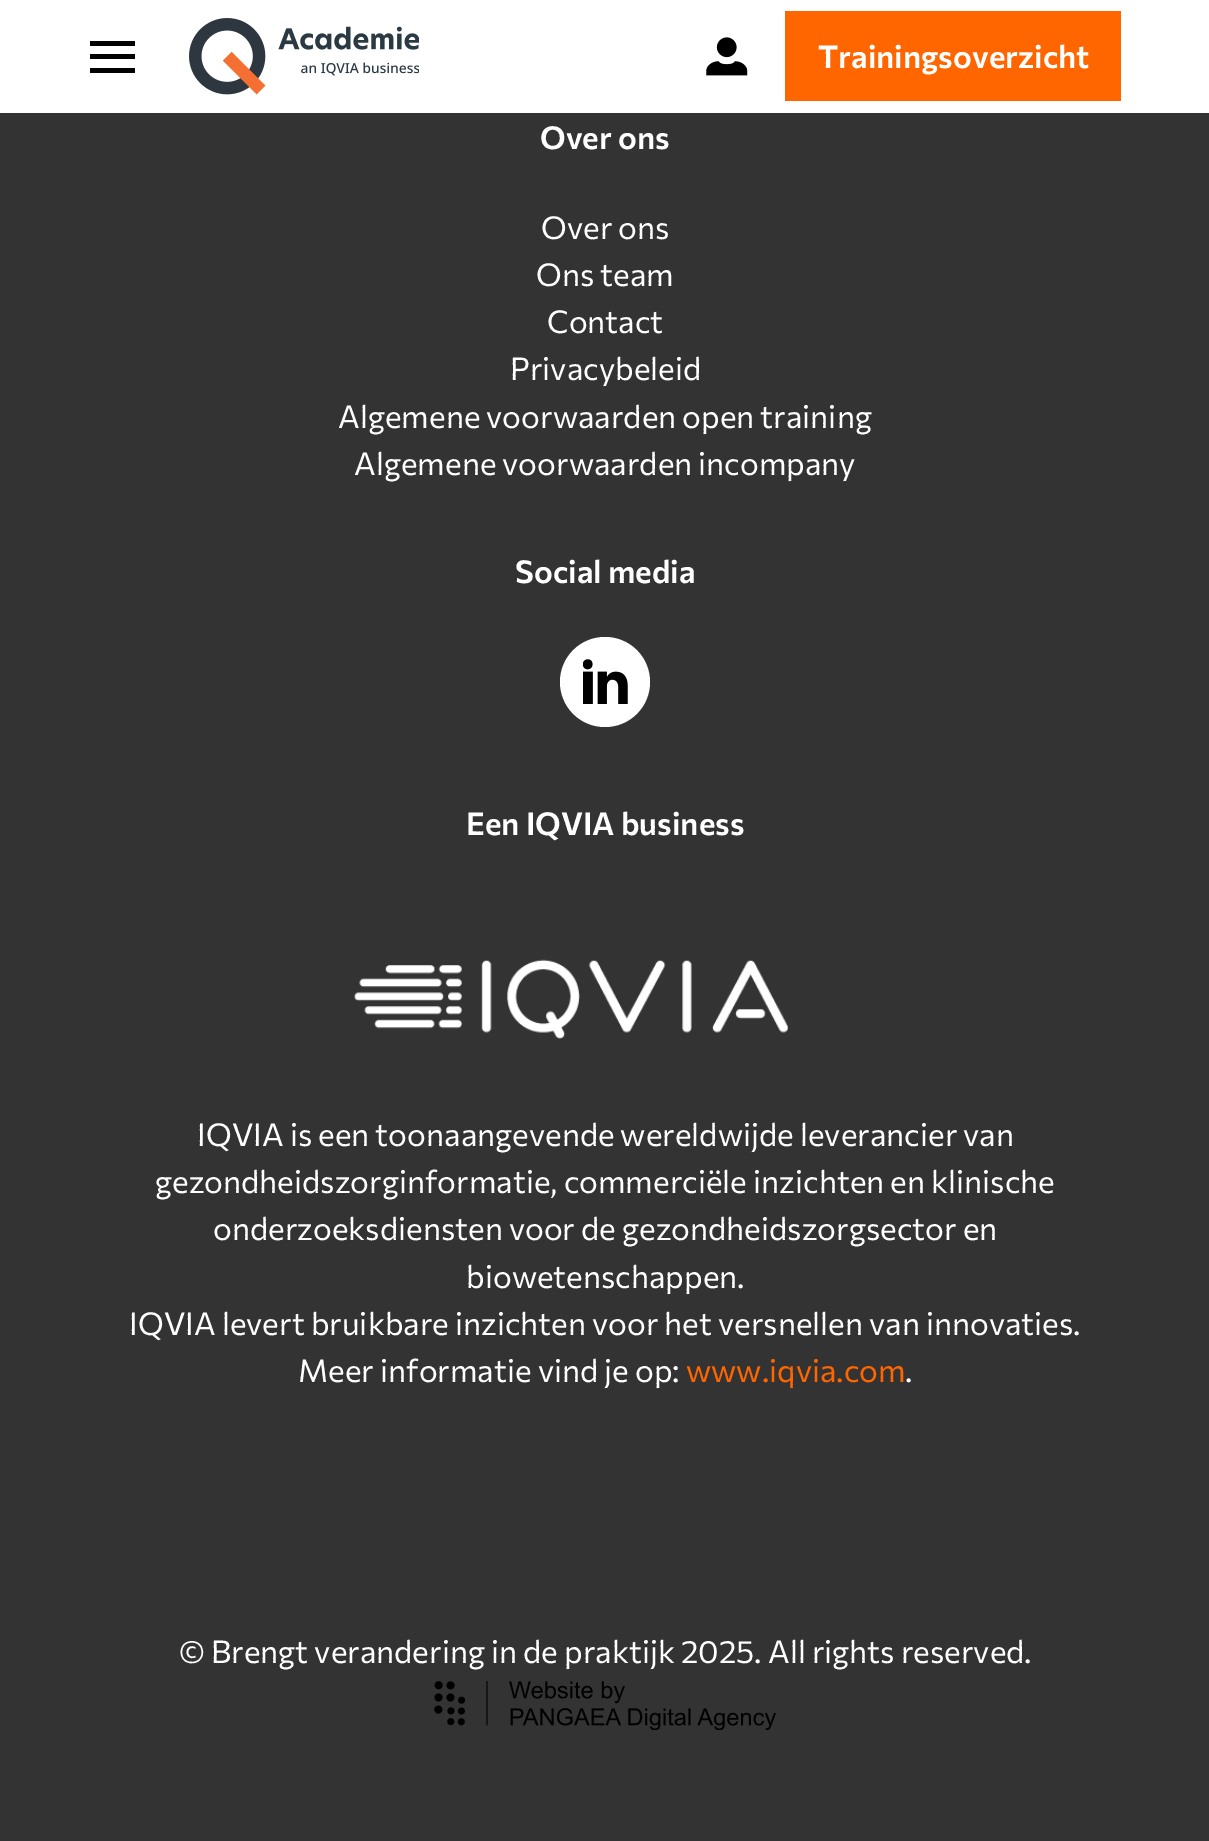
%!PS
<< /PageSize [1209 1841] >> setpagedevice
/rgb { dup -16 bitshift 255 div exch dup -8 bitshift 255 and 255 div exch 255 and 255 div setrgbcolor } def
/font { [ exch dup neg 0 0 3 -1 roll 0 0 ] selectfont } def
/text { moveto show } def
/circle { newpath 0 360 arc closepath } def
/picture { 5 dict begin { /h /w /y /x /name } { exch def } forall
  gsave x y translate w h scale
  w h 8 [w 0 0 h 0 0] name (r) file false 3 colorimage grestore end } def
0 1841 translate 1 -1 scale
4 setmiterlimit
/s1 { /Commissioner-SemiBold 31.5 font 16#FFFFFF rgb } def
/s2 { /Commissioner-Regular 31.5 font 16#FFFFFF rgb } def
/s3 { /Commissioner-Regular 31.5 font 16#FF6600 rgb } def
16#333333 rgb
0 0 1209 1841 rectfill
16#FFFFFF rgb
0 0 1209 113 rectfill
16#000000 rgb
90 41 45 5 rectfill
90 54 45 5 rectfill
90 68 45 5 rectfill
(pic1.raw) 189 18 230 77 picture
(pic2.raw) 706 37 42 39 picture
16#FF6600 rgb
785 11 336 90 rectfill
s1
(Trainingsoverzicht) 818 68 text
(Over ons) 540 149 text
s2
(Over ons) 541 239 text
(Ons team) 536 286 text
(Contact) 547 333 text
(Privacybeleid) 510 380 text
(Algemene voorwaarden open training) 338 428 text
(Algemene voorwaarden incompany) 354 475 text
s1
(Social media) 515 583 text
605 682 45 circle fill
(pic3.raw) 583 659 45 45 picture
(Een IQVIA business) 466 835 text
(pic4.raw) 354 959 434 80 picture
s2
(IQVIA is een toonaangevende wereldwijde leverancier van) 197 1146 text
(gezondheidszorginformatie, commerciële inzichten en klinische) 155 1193 text
(onderzoeksdiensten voor de gezondheidszorgsector en) 213 1240 text
(biowetenschappen.) 466 1288 text
(IQVIA levert bruikbare inzichten voor het versnellen van innovaties.) 129 1335 text
(Meer informatie vind je op:) 298 1382 text
s3
(www.iqvia.com) 686 1382 text
s2
(.) 905 1382 text
(© Brengt verandering in de praktijk 2025. All rights reserved.) 179 1663 text
(pic5.raw) 434 1681 342 49 picture
showpage
